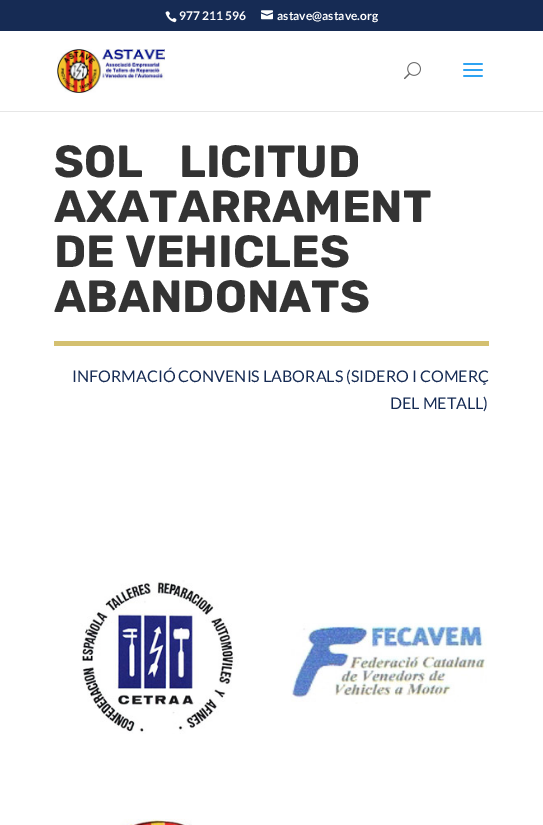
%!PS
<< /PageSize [543 825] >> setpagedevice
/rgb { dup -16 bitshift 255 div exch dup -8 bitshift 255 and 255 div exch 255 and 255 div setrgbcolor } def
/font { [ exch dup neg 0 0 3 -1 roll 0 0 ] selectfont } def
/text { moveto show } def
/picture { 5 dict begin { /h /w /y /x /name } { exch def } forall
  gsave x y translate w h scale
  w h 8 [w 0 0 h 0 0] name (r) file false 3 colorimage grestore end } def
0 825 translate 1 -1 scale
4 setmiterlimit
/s1 { /Lato-Bold 12 font 16#FFFFFF rgb } def
/s2 { /Rubik-Light 45 font 16#333333 rgb } def
/s3 { /Lato-Regular 16 font 16#162B54 rgb } def
16#FFFFFF rgb
0 0 543 825 rectfill
16#162B54 rgb
0 0 543 31 rectfill
(pic1.raw) 165 11 12 12 picture
s1
(977 211 596) 179 20 text
(pic2.raw) 261 10 12 10 picture
(astave@astave.org) 277 20 text
16#E6E6E6 rgb
0 111 543 1 rectfill
(pic3.raw) 57 49 108 44 picture
(pic4.raw) 404 62 17 18 picture
(pic5.raw) 463 63 20 14 picture
s2
(SOL) 54 177 text
(LICITUD) 179 177 text
(AXATARRAMENT) 54 222 text
(DE VEHICLES) 54 267 text
(ABANDONATS) 54 312 text
16#D4C070 rgb
54 341 435 5 rectfill
s3
(INFORMACIÓ CONVENIS LABORALS \(SIDERO I COMERÇ) 72 382 text
(DEL METALL\)) 390 409 text
(pic6.raw) 80 580 159 154 picture
(pic7.raw) 290 623 197 81 picture
(pic8.raw) 120 819 72 6 picture
showpage
